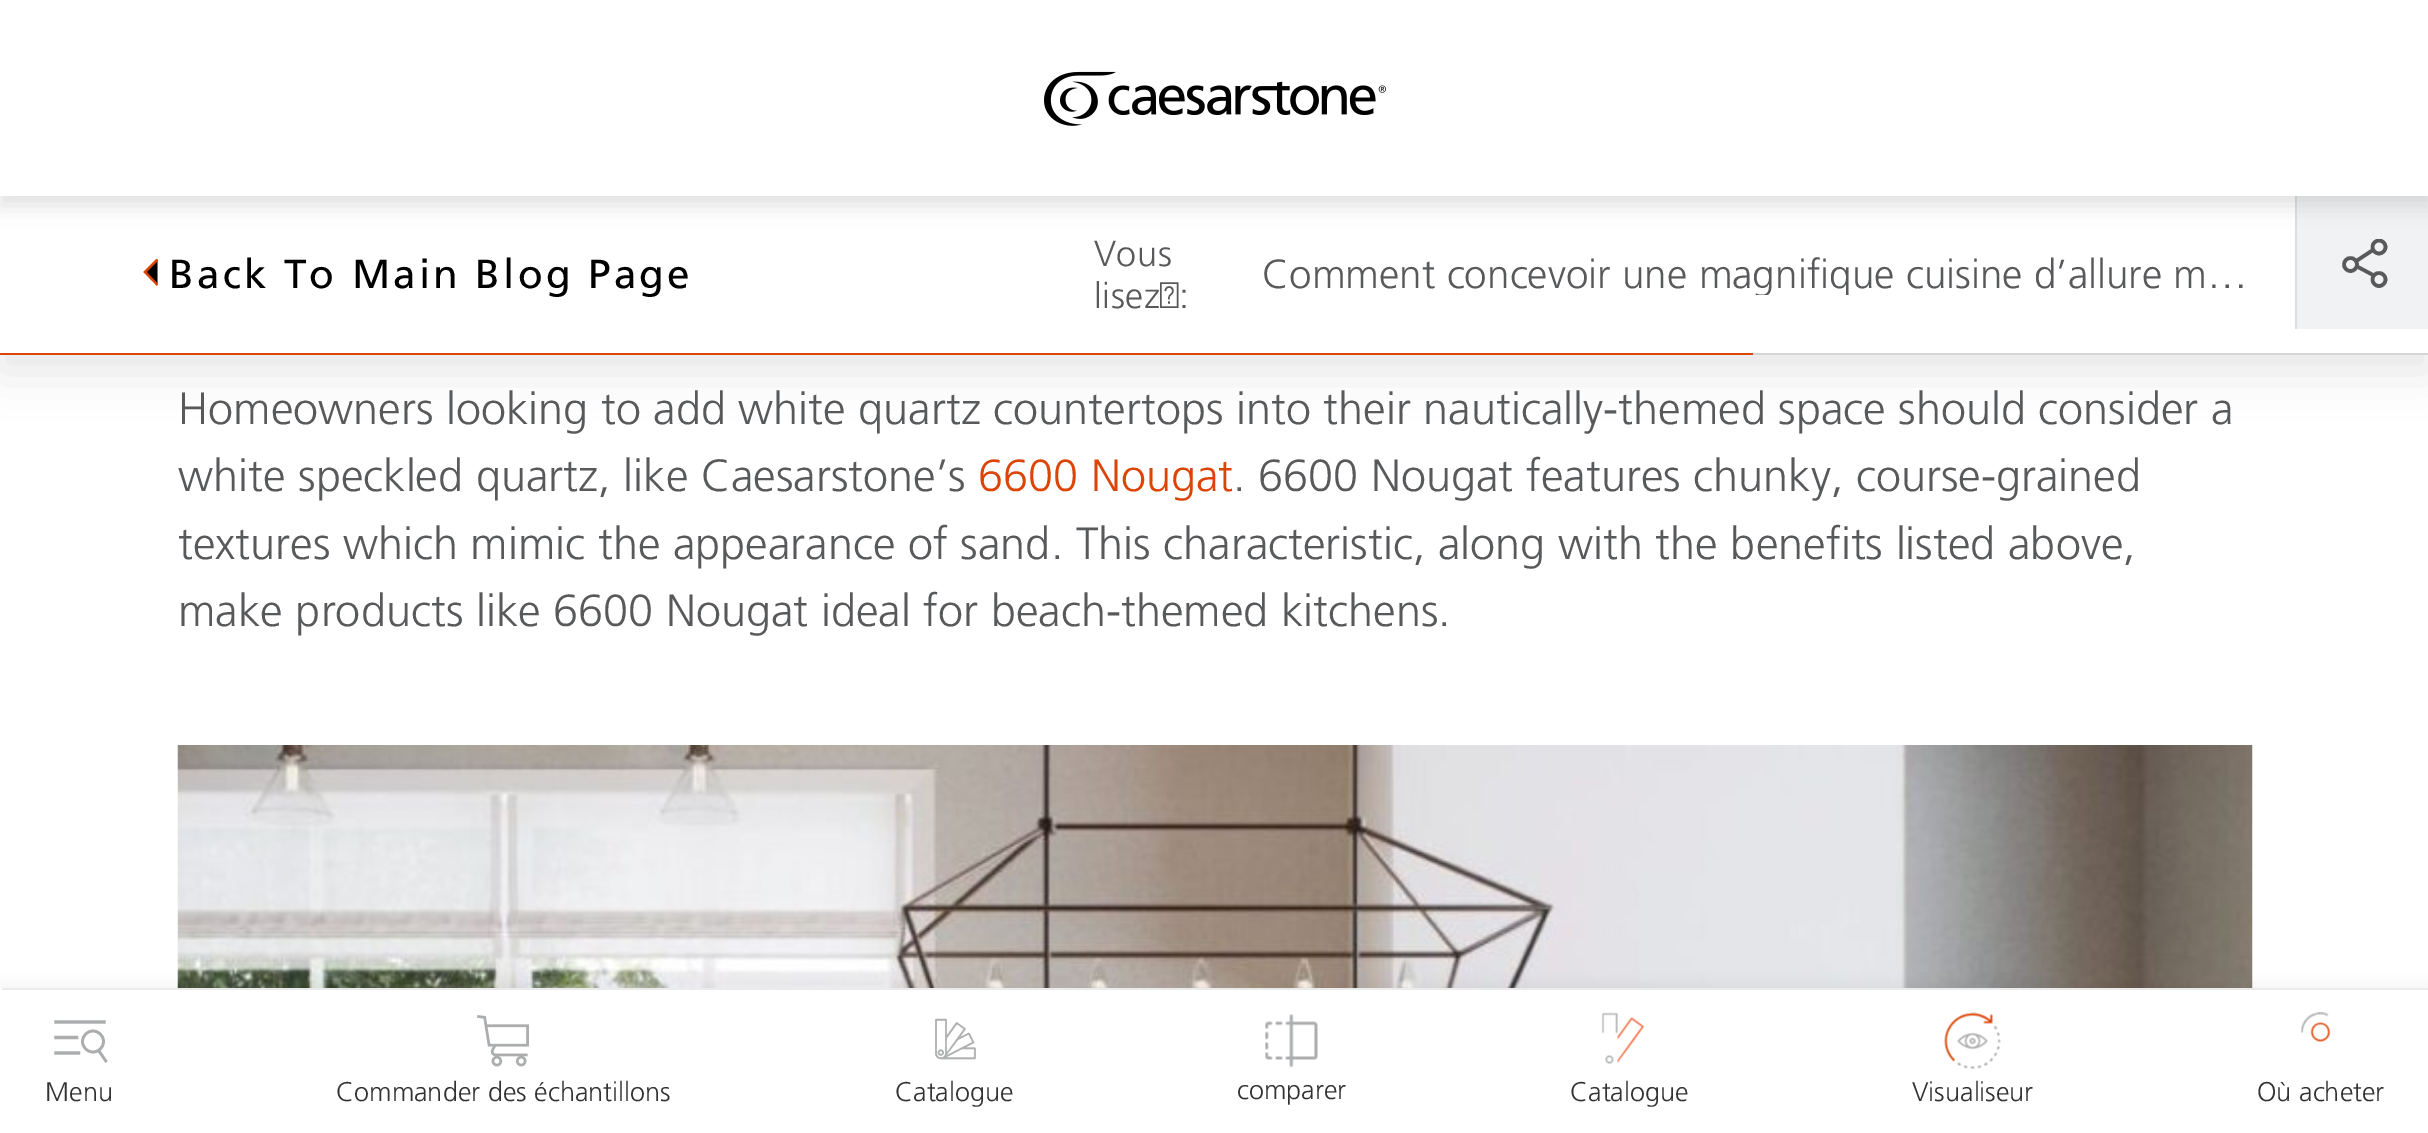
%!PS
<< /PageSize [2428 1133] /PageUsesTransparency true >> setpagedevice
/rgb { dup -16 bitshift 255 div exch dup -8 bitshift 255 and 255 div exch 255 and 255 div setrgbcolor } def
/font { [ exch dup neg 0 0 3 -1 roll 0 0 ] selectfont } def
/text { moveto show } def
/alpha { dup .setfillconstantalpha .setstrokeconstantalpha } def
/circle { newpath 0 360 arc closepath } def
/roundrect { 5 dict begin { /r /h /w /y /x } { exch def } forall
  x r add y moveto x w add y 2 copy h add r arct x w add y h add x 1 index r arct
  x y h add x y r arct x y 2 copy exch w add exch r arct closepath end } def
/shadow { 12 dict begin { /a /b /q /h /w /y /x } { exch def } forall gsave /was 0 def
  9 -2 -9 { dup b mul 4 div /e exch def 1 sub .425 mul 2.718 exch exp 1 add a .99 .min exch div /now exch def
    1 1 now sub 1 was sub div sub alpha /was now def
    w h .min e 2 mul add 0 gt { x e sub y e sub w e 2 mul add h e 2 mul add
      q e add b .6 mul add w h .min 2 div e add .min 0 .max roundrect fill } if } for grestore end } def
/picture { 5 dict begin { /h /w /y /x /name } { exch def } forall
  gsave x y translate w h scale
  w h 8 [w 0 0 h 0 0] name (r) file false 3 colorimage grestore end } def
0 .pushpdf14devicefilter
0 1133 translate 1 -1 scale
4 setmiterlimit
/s1 { /Frutiger-Light 40.5 font 16#58595B rgb } def
/s2 { /Frutiger-Light 45 font 16#58595B rgb } def
/s3 { /Frutiger-Light 45 font 16#DC4405 rgb } def
/s4 { /Frutiger-Light 27 font 16#323232 rgb } def
16#FFFFFF rgb
0 0 2428 1133 rectfill
16#000000 rgb
0 214 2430 157 0 22.5 0.1 shadow
16#FFFFFF rgb
0 196 2428 157 rectfill
16#DEDEDE rgb
2295 196 2 133 rectfill
16#F1F2F3 rgb
2297 196 131 133 rectfill
16#000000 rgb
0 9 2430 196 0 11 0.12 shadow
16#FFFFFF rgb
0 0 2428 196 rectfill
(pic1.raw) 1044 71 342 55 picture
16#000000 rgb
157.5 285 moveto 145 272 lineto 157.5 259.5 lineto fill
gsave
140 259 18 27 rectclip
16#DC4405 rgb
2.2 setlinewidth
157.5 285 moveto 145 272 lineto 157.5 259.5 lineto stroke
grestore
/Frutiger-Regular 40.5 font
169 288 moveto 3.15 0 (Back To Main Blog Page) ashow
/Frutiger-Light 36 font
16#58595B rgb
1094 266 moveto 0.5 0 (Vous) ashow
1094 308 moveto 0.5 0 (lisez :) ashow
gsave
1262 254 988 41 rectclip
s1
(Comment concevoir une magnifique cuisine d’allure m…) 1262 288 text
grestore
gsave
2340 239 50 49 rectclip
3.6 setlinewidth
2379 247 6.5 circle stroke
grestore
3.6 setlinewidth
2379 279.5 6.5 circle stroke
2350.5 264.5 6.5 circle stroke
2373 250 moveto 2357 260.5 lineto 2357 266.5 moveto 2374 275.5 lineto stroke
16#D5D5D6 rgb
1753 353 675 2 rectfill
16#DC4405 rgb
0 353 1753 2 rectfill
s2
(Homeowners looking to add white quartz countertops into their nautically-themed space should consider a) 178 424 text
(white speckled quartz, like Caesarstone’s) 178 491 text
s3
(6600 Nougat) 978 491 text
s2
(. 6600 Nougat features chunky, course-grained) 1233 491 text
(textures which mimic the appearance of sand. This characteristic, along with the benefits listed above,) 178 559 text
(make products like 6600 Nougat ideal for beach-themed kitchens.) 178 626 text
(pic2.raw) 177 745 2076 243 picture
16#000000 rgb
0 981 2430 146 0 7 0.04 shadow
16#FFFFFF rgb
0 988 2428 144 rectfill
16#EBEBEB rgb
2 988 2426 2 rectfill
16#ACADAE rgb
3.2 setlinewidth
2 setlinecap
56 1022 moveto 104 1022 lineto 56 1037.5 moveto 76.5 1037.5 lineto 56 1053 moveto 78.5 1053 lineto stroke
2.7 setlinewidth
0 setlinecap
93 1041.5 10.5 circle stroke
106.5 1062 moveto 99 1051 lineto stroke
s4
(Menu) 45 1101 text
(pic3.raw) 477 1015 52 52 picture
(Commander des échantillons) 336 1101 text
(pic4.raw) 935 1018 41 42 picture
(Catalogue) 895 1101 text
(pic5.raw) 1265 1014 53 54 picture
(comparer) 1237 1099 text
(pic6.raw) 1601 1012 43 52 picture
(Catalogue) 1570 1101 text
(pic7.raw) 1944 1012 57 57 picture
(Visualiseur) 1912 1101 text
(pic8.raw) 2300 1012 31 30 picture
(Où acheter) 2257 1101 text
.poppdf14devicefilter showpage
